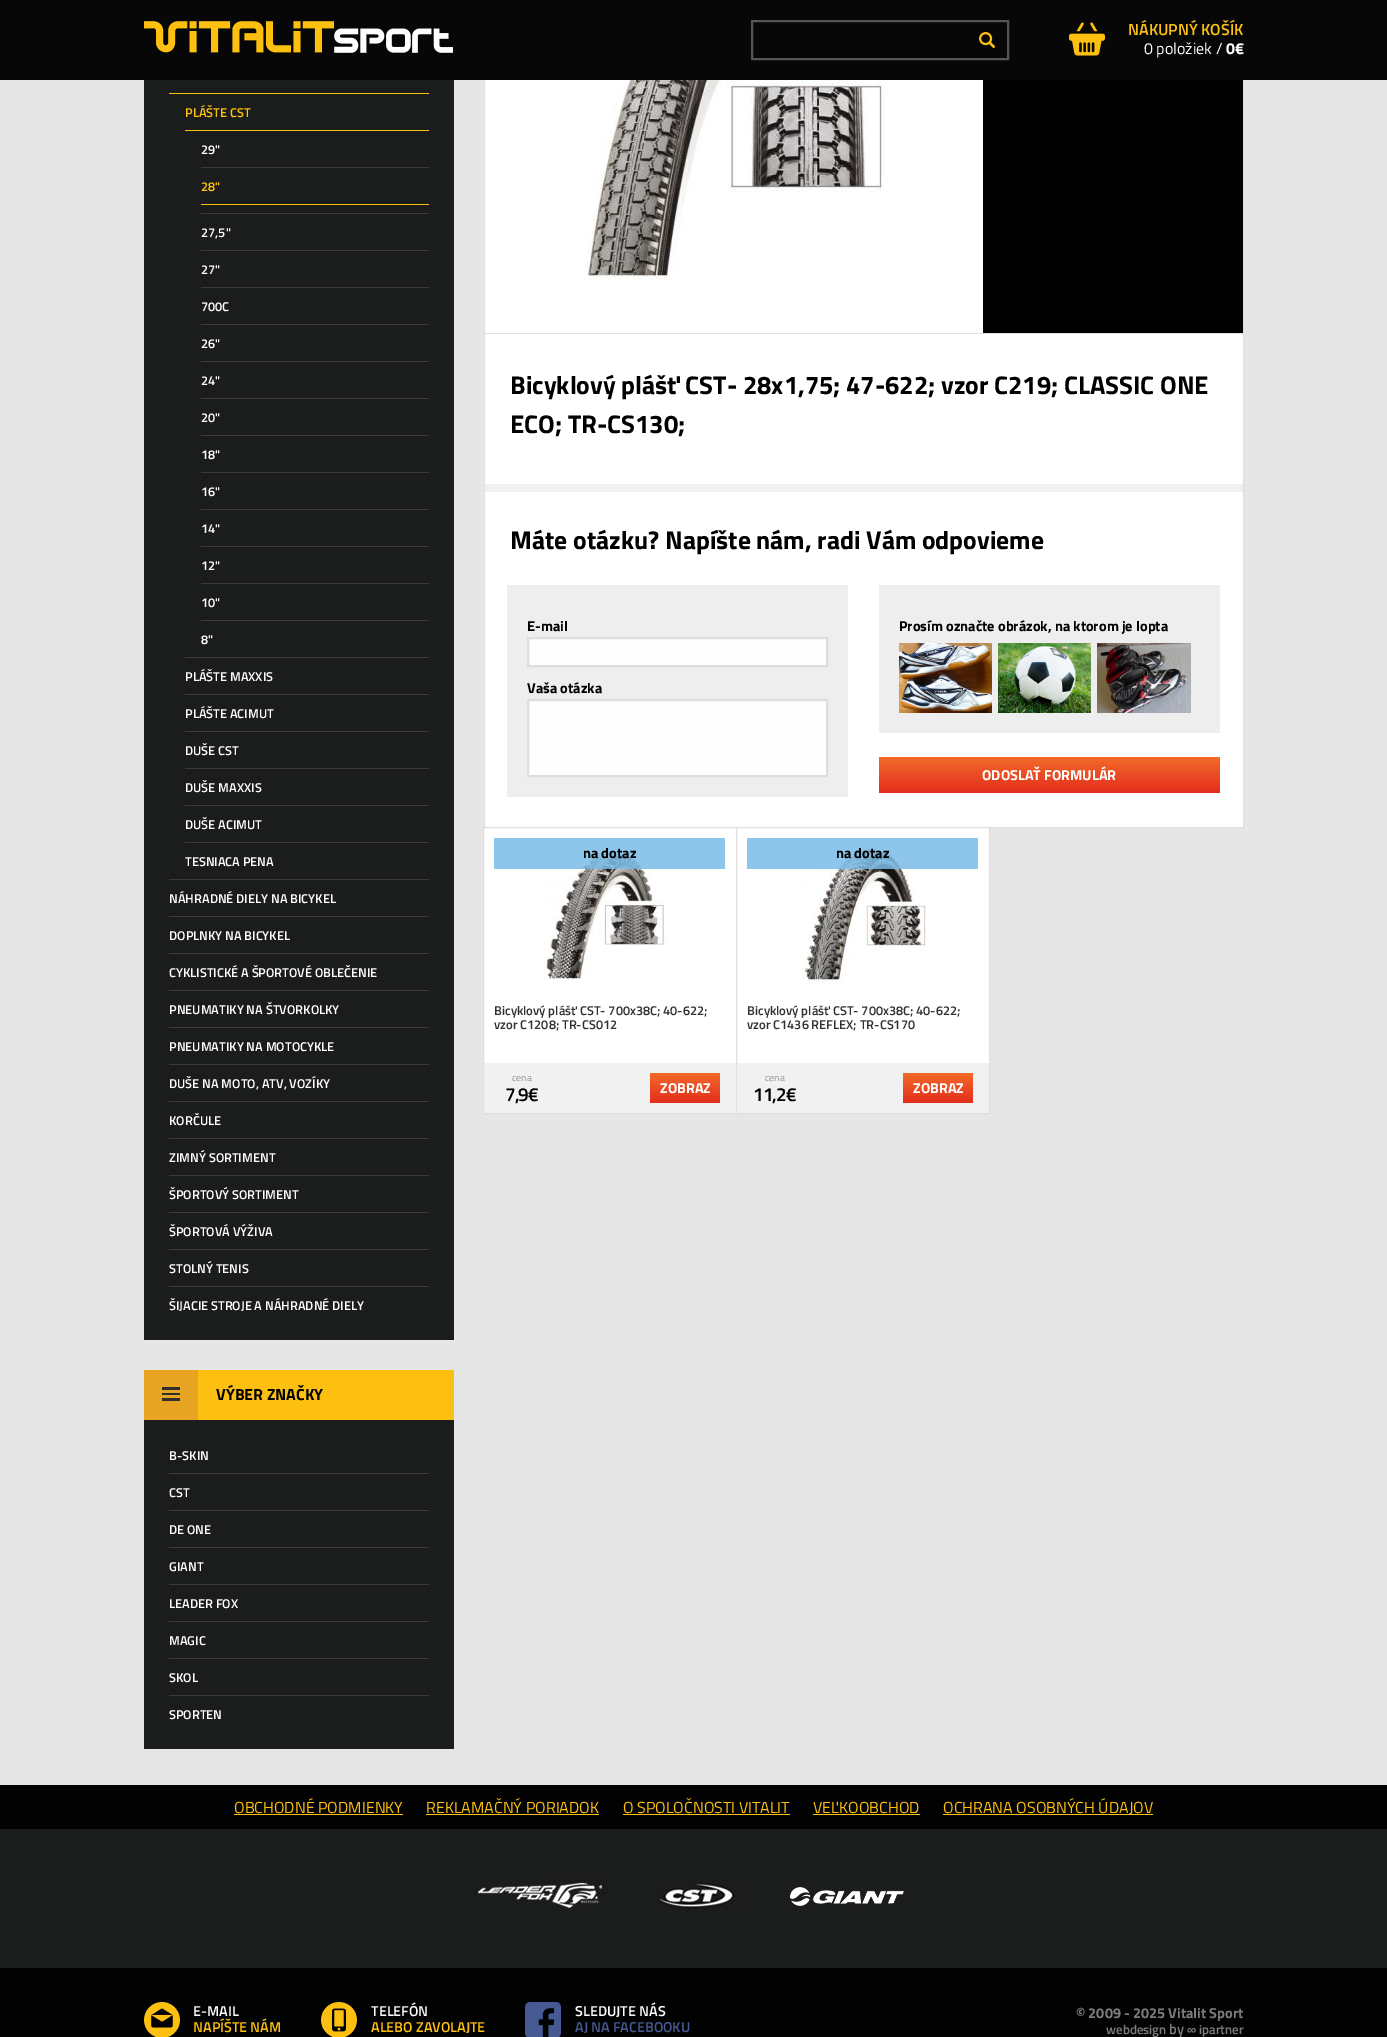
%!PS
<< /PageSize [1387 2037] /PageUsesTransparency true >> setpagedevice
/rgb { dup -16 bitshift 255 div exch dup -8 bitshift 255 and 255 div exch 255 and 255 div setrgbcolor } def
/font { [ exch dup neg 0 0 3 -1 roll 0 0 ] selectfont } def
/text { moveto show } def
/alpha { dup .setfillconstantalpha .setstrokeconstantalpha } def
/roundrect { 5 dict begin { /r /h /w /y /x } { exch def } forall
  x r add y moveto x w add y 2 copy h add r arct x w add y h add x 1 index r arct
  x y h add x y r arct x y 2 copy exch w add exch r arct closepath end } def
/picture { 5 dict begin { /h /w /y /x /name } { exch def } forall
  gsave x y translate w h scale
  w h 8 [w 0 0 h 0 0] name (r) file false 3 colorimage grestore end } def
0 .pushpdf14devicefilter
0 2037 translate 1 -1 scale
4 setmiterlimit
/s1 { /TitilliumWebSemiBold-SemiBold 16 font 16#FDC010 rgb } def
/s2 { /TitilliumWeb-Regular 16 font 16#FFFFFF rgb } def
/s3 { /TitilliumWeb-Bold 16 font 16#FFFFFF rgb } def
/s4 { /TitilliumWebSemiBold-SemiBold 12.75 font 16#FDC010 rgb } def
/s5 { /TitilliumWebSemiBold-SemiBold 12.75 font 16#FFFFFF rgb } def
/s6 { /TitilliumWeb-Bold 16 font 16#000000 rgb } def
/s7 { /TitilliumWeb-Bold 25.6 font 16#000000 rgb } def
/s8 { /TitilliumWeb-Bold 14.4 font 16#000000 rgb } def
/s9 { /TitilliumWeb-Bold 14.4 font 16#FFFFFF rgb } def
/s10 { /TitilliumWebSemiBold-SemiBold 12.75 font 16#313131 rgb } def
/s11 { /TitilliumWeb-Regular 10 font 16#929292 rgb } def
/s12 { /TitilliumWeb-Regular 16 font 16#FDC010 rgb } def
/s13 { /TitilliumWebSemiBold-SemiBold 14.4 font 16#FFFFFF rgb } def
/s14 { /TitilliumWebSemiBold-SemiBold 14.4 font 16#FDC010 rgb } def
/s15 { /TitilliumWebSemiBold-SemiBold 14.4 font 16#465892 rgb } def
/s16 { /TitilliumWeb-Bold 14.4 font 16#7C7C7C rgb } def
/s17 { /TitilliumWebSemiBold-SemiBold 13 font 16#7C7C7C rgb } def
/s18 { /TitilliumWebSemiBold-SemiBold 14.4 font 16#7C7C7C rgb } def
/s19 { /LiberationSans-Bold 13 font 16#7C7C7C rgb } def
16#010201 rgb
0 0 1387 2037 rectfill
16#070707 rgb
0 0 1387 80 rectfill
(pic1.raw) 144 21 309 32 picture
16#545554 rgb
2 setlinewidth
752 21 256 38 rectstroke
(pic2.raw) 979 32 16 16 picture
(pic3.raw) 1069 22 36 34 picture
s1
(NÁKUPNÝ KOŠÍK) 1128 35 text
s2
(0 položiek /) 1144 54 text
s3
(0€) 1226 54 text
16#E6E6E6 rgb
0 80 1387 1705 rectfill
16#1B1D1C rgb
144 80 310 1260 rectfill
16#FDC010 rgb
169 93 260 1 rectfill
s4
(PLÁŠTE CST) 185 117 text
185 130 244 1 rectfill
s5
(29") 201 154 text
16#3A3A3A rgb
201 167 228 1 rectfill
s4
(28") 201 191 text
201 204 228 1 rectfill
16#3A3A3A rgb
201 213 228 1 rectfill
s5
(27,5") 201 237 text
16#3A3A3A rgb
201 250 228 1 rectfill
s5
(27") 201 274 text
16#3A3A3A rgb
201 287 228 1 rectfill
s5
(700C) 201 311 text
16#3A3A3A rgb
201 324 228 1 rectfill
s5
(26") 201 348 text
16#3A3A3A rgb
201 361 228 1 rectfill
s5
(24") 201 385 text
16#3A3A3A rgb
201 398 228 1 rectfill
s5
(20") 201 422 text
16#3A3A3A rgb
201 435 228 1 rectfill
s5
(18") 201 459 text
16#3A3A3A rgb
201 472 228 1 rectfill
s5
(16") 201 496 text
16#3A3A3A rgb
201 509 228 1 rectfill
s5
(14") 201 533 text
16#3A3A3A rgb
201 546 228 1 rectfill
s5
(12") 201 570 text
16#3A3A3A rgb
201 583 228 1 rectfill
s5
(10") 201 607 text
16#3A3A3A rgb
201 620 228 1 rectfill
s5
(8") 201 644 text
16#3A3A3A rgb
185 657 244 1 rectfill
s5
(PLÁŠTE MAXXIS) 185 681 text
16#3A3A3A rgb
185 694 244 1 rectfill
s5
(PLÁŠTE ACIMUT) 185 718 text
16#3A3A3A rgb
185 731 244 1 rectfill
s5
(DUŠE CST) 185 755 text
16#3A3A3A rgb
185 768 244 1 rectfill
s5
(DUŠE MAXXIS) 185 792 text
16#3A3A3A rgb
185 805 244 1 rectfill
s5
(DUŠE ACIMUT) 185 829 text
16#3A3A3A rgb
185 842 244 1 rectfill
s5
(TESNIACA PENA) 185 866 text
16#3A3A3A rgb
169 879 260 1 rectfill
s5
(NÁHRADNÉ DIELY NA BICYKEL) 169 903 text
16#3A3A3A rgb
169 916 260 1 rectfill
s5
(DOPLNKY NA BICYKEL) 169 940 text
16#3A3A3A rgb
169 953 260 1 rectfill
s5
(CYKLISTICKÉ A ŠPORTOVÉ OBLEČENIE) 169 977 text
16#3A3A3A rgb
169 990 260 1 rectfill
s5
(PNEUMATIKY NA ŠTVORKOLKY) 169 1014 text
16#3A3A3A rgb
169 1027 260 1 rectfill
s5
(PNEUMATIKY NA MOTOCYKLE) 169 1051 text
16#3A3A3A rgb
169 1064 260 1 rectfill
s5
(DUŠE NA MOTO, ATV, VOZÍKY) 169 1088 text
16#3A3A3A rgb
169 1101 260 1 rectfill
s5
(KORČULE) 169 1125 text
16#3A3A3A rgb
169 1138 260 1 rectfill
s5
(ZIMNÝ SORTIMENT) 169 1162 text
16#3A3A3A rgb
169 1175 260 1 rectfill
s5
(ŠPORTOVÝ SORTIMENT) 169 1199 text
16#3A3A3A rgb
169 1212 260 1 rectfill
s5
(ŠPORTOVÁ VÝŽIVA) 169 1236 text
16#3A3A3A rgb
169 1249 260 1 rectfill
s5
(STOLNÝ TENIS) 169 1273 text
16#3A3A3A rgb
169 1286 260 1 rectfill
s5
(ŠIJACIE STROJE A NÁHRADNÉ DIELY) 169 1310 text
16#E8A523 rgb
144 1370 54 50 rectfill
16#2E2E2D rgb
162 1387 18 3 rectfill
162 1393 18 2 rectfill
162 1398 18 3 rectfill
16#FDC010 rgb
198 1370 256 50 rectfill
s6
(VÝBER ZNAČKY) 216 1400 text
16#1B1D1C rgb
144 1420 310 329 rectfill
s5
(B-SKIN) 169 1460 text
16#3A3A3A rgb
169 1473 260 1 rectfill
s5
(CST) 169 1497 text
16#3A3A3A rgb
169 1510 260 1 rectfill
s5
(DE ONE) 169 1534 text
16#3A3A3A rgb
169 1547 260 1 rectfill
s5
(GIANT) 169 1571 text
16#3A3A3A rgb
169 1584 260 1 rectfill
s5
(LEADER FOX) 169 1608 text
16#3A3A3A rgb
169 1621 260 1 rectfill
s5
(MAGIC) 169 1645 text
16#3A3A3A rgb
169 1658 260 1 rectfill
s5
(SKOL) 169 1682 text
16#3A3A3A rgb
169 1695 260 1 rectfill
s5
(SPORTEN) 169 1719 text
16#DFDFDF rgb
1243 80 1 253 rectfill
484 80 1 253 rectfill
16#FFFFFF rgb
485 80 498 253 rectfill
(pic4.raw) 582 80 304 201 picture
16#000000 rgb
983 80 260 253 rectfill
16#DFDFDF rgb
1 setlinewidth
484.5 333.5 759 494 rectstroke
16#FFFFFF rgb
485 334 758 150 rectfill
s7
(Bicyklový plášť CST- 28x1,75; 47-622; vzor C219; CLASSIC ONE) 510 394 text
(ECO; TR-CS130;) 510 433 text
16#F1F1F1 rgb
485 484 758 8 rectfill
16#FFFFFF rgb
485 492 758 335 rectfill
s7
(Máte otázku? Napíšte nám, radi Vám odpovieme) 510 549 text
16#EEEEEE rgb
507 585 341 212 rectfill
s8
(E-mail) 527 631 text
16#FEFEFE rgb
528 638 moveto 827 638 lineto 827 666 lineto 528 666 lineto closepath gsave fill grestore
16#DDDDDD rgb
2 setlinewidth
stroke
s8
(Vaša otázka) 527 693 text
16#FEFEFE rgb
528 700 moveto 827 700 lineto 827 776 lineto 528 776 lineto closepath gsave fill grestore
16#DDDDDD rgb
stroke
16#EEEEEE rgb
879 585 341 148 rectfill
s8
(Prosím označte obrázok, na ktorom je lopta) 899 631 text
(pic5.raw) 899 643 93 70 picture
(pic6.raw) 998 643 93 70 picture
(pic7.raw) 1097 643 94 70 picture
gsave 879 757 341 36 3 roundrect clip newpath
<< /ShadingType 2 /ColorSpace /DeviceRGB /Coords [1050 757 1050 793] /Extend [true true] /Function << /FunctionType 2 /Domain [0 1] /C0 [0.949 0.42 0.161] /C1 [0.89 0.176 0.114] /N 1 >> >> shfill grestore
s9
(ODOSLAŤ FORMULÁR) 982 780 text
484 828 252 235 rectfill
16#DFDFDF rgb
1 setlinewidth
483.5 827.5 253 286 rectstroke
(pic8.raw) 543 849 124 131 picture
0.85 alpha
16#79BCE6 rgb
494 838 231 31 rectfill
1 alpha
s8
(na dotaz) 583 858 text
s10
(Bicyklový plášť CST- 700x38C; 40-622;) 494 1015 text
(vzor C1208; TR-CS012) 494 1029 text
16#F1F1F1 rgb
484 1063 252 50 rectfill
s11
(cena) 512 1081 text
/TitilliumWebSemiBold-SemiBold 19 font
16#000000 rgb
505 1101 moveto -1 0 (7,9€) ashow
gsave 650 1073 70 30 3 roundrect clip newpath
<< /ShadingType 2 /ColorSpace /DeviceRGB /Coords [685 1073 685 1103] /Extend [true true] /Function << /FunctionType 2 /Domain [0 1] /C0 [0.949 0.42 0.161] /C1 [0.89 0.176 0.114] /N 1 >> >> shfill grestore
s9
(ZOBRAZ) 660 1093 text
737 828 252 235 rectfill
16#DFDFDF rgb
736.5 827.5 253 286 rectstroke
(pic9.raw) 802 847 124 137 picture
0.85 alpha
16#79BCE6 rgb
747 838 231 31 rectfill
1 alpha
s8
(na dotaz) 836 858 text
s10
(Bicyklový plášť CST- 700x38C; 40-622;) 747 1015 text
(vzor C1436 REFLEX; TR-CS170) 747 1029 text
16#F1F1F1 rgb
737 1063 252 50 rectfill
s11
(cena) 765 1081 text
/TitilliumWebSemiBold-SemiBold 19 font
16#000000 rgb
753 1101 moveto -1 0 (11,2€) ashow
gsave 903 1073 70 30 3 roundrect clip newpath
<< /ShadingType 2 /ColorSpace /DeviceRGB /Coords [938 1073 938 1103] /Extend [true true] /Function << /FunctionType 2 /Domain [0 1] /C0 [0.949 0.42 0.161] /C1 [0.89 0.176 0.114] /N 1 >> >> shfill grestore
s9
(ZOBRAZ) 913 1093 text
s12
(OBCHODNÉ PODMIENKY) 234 1813 text
234 1814 169 1 rectfill
(REKLAMAČNÝ PORIADOK) 426 1813 text
426 1814 173 1 rectfill
(O SPOLOČNOSTI VITALIT) 623 1813 text
623 1814 167 1 rectfill
(VEĽKOOBCHOD) 813 1813 text
813 1814 107 1 rectfill
943 1814 210 1 rectfill
(OCHRANA OSOBNÝCH ÚDAJOV) 943 1813 text
16#1B1D1C rgb
0 1829 1387 139 rectfill
(pic10.raw) 473 1879 135 32 picture
(pic11.raw) 659 1880 80 31 picture
(pic12.raw) 790 1887 114 19 picture
(pic13.raw) 144 2002 36 35 picture
s13
(E-MAIL) 193 2016 text
s14
(NAPÍŠTE NÁM) 193 2032 text
(pic14.raw) 321 2002 36 35 picture
s13
(TELEFÓN) 371 2016 text
s14
(ALEBO ZAVOLAJTE) 371 2032 text
(pic15.raw) 525 2002 36 35 picture
s13
(SLEDUJTE NÁS) 575 2016 text
s15
(AJ NA FACEBOOKU) 575 2032 text
s16
(© 2009 - 2025 Vitalit Sport) 1076 2018 text
s17
(webdesign) 1106 2034 text
s18
(by) 1169 2034 text
s19
(∞) 1187 2034 text
s17
(ipartner) 1199 2034 text
.poppdf14devicefilter showpage
